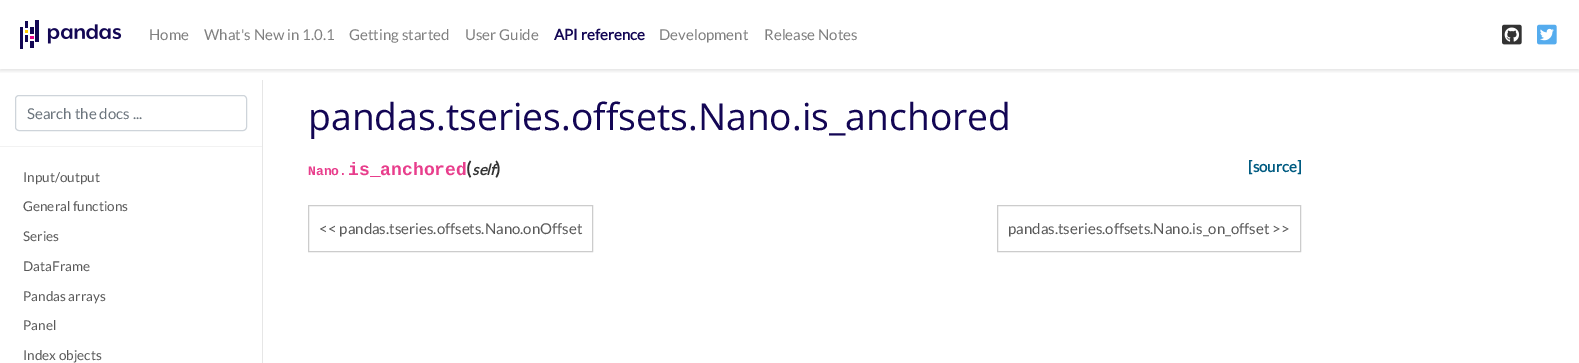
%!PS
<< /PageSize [1579 363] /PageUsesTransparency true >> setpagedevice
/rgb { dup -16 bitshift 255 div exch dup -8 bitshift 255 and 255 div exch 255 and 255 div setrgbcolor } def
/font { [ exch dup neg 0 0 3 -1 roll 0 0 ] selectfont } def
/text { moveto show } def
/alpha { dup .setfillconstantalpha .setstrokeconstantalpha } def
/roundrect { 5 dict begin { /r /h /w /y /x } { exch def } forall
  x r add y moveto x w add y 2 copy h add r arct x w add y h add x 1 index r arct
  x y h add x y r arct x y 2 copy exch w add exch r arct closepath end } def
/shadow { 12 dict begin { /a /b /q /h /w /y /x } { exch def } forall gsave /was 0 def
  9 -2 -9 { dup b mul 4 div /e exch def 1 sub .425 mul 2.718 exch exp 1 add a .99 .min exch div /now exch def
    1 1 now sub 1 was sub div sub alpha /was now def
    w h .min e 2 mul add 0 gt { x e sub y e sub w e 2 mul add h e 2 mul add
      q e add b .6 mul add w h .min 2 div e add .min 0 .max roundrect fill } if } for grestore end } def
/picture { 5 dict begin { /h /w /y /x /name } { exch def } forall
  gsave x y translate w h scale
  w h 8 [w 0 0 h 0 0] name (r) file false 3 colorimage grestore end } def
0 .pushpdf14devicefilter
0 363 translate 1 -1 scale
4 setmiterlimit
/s1 { /Lato-Regular 15 font 16#808080 rgb } def
/s2 { /Lato-Bold 15 font 16#130654 rgb } def
/s3 { /Lato-Regular 15 font 16#6C757D rgb } def
/s4 { /Lato-Regular 13.5 font 16#595959 rgb } def
/s5 { /OpenSans-Regular 37.3 font 16#130654 rgb } def
/s6 { /LiberationMono-Bold 18 font 16#E83E8C rgb } def
/s7 { /Lato-Bold 18 font 16#333333 rgb } def
/s8 { /Lato-BoldItalic 15 font 16#333333 rgb } def
/s9 { /Lato-Bold 15 font 16#005B81 rgb } def
/s10 { /LiberationMono-Bold 13 font 16#E83E8C rgb } def
/s11 { /Lato-Regular 15 font 16#595959 rgb } def
16#FFFFFF rgb
0 0 1579 363 rectfill
gsave
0 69 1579 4 rectclip
16#000000 rgb
0 2 1579 69 0 2 0.11 shadow
grestore
(pic1.raw) 20 20 102 29 picture
s1
(Home) 149 40 text
(What's New in 1.0.1) 204 40 text
(Getting started) 349 40 text
(User Guide) 465 40 text
s2
(API reference) 554 40 text
s1
(Development) 659 40 text
(Release Notes) 764 40 text
(pic2.raw) 1502 24 20 21 picture
(pic3.raw) 1537 24 20 21 picture
16#E6E6E6 rgb
262 80 1 283 rectfill
16#F2F2F2 rgb
0 146 262 1 rectfill
16#CED4DA rgb
15.5 95.5 231 35 3.5 roundrect stroke
s3
(Search the docs ...) 27 119 text
s4
(Input/output) 23 182 text
(General functions) 23 211 text
(Series) 23 241 text
(DataFrame) 23 271 text
(Pandas arrays) 23 301 text
(Panel) 23 330 text
(Index objects) 23 360 text
s5
(pandas.tseries.offsets.Nano.is_anchored) 308 130 text
s6
(is_anchored) 348 175 text
s7
(\() 466 175 text
s8
(self) 472 175 text
s7
(\)) 495 175 text
s9
([source]) 1248 172 text
s10
(Nano.) 308 175 text
16#CCCCCC rgb
308.5 205.5 284 46 rectstroke
s11
(<< pandas.tseries.offsets.Nano.onOffset) 319 234 text
16#CCCCCC rgb
997.5 205.5 303 46 rectstroke
s11
(pandas.tseries.offsets.Nano.is_on_offset >>) 1008 234 text
.poppdf14devicefilter showpage
